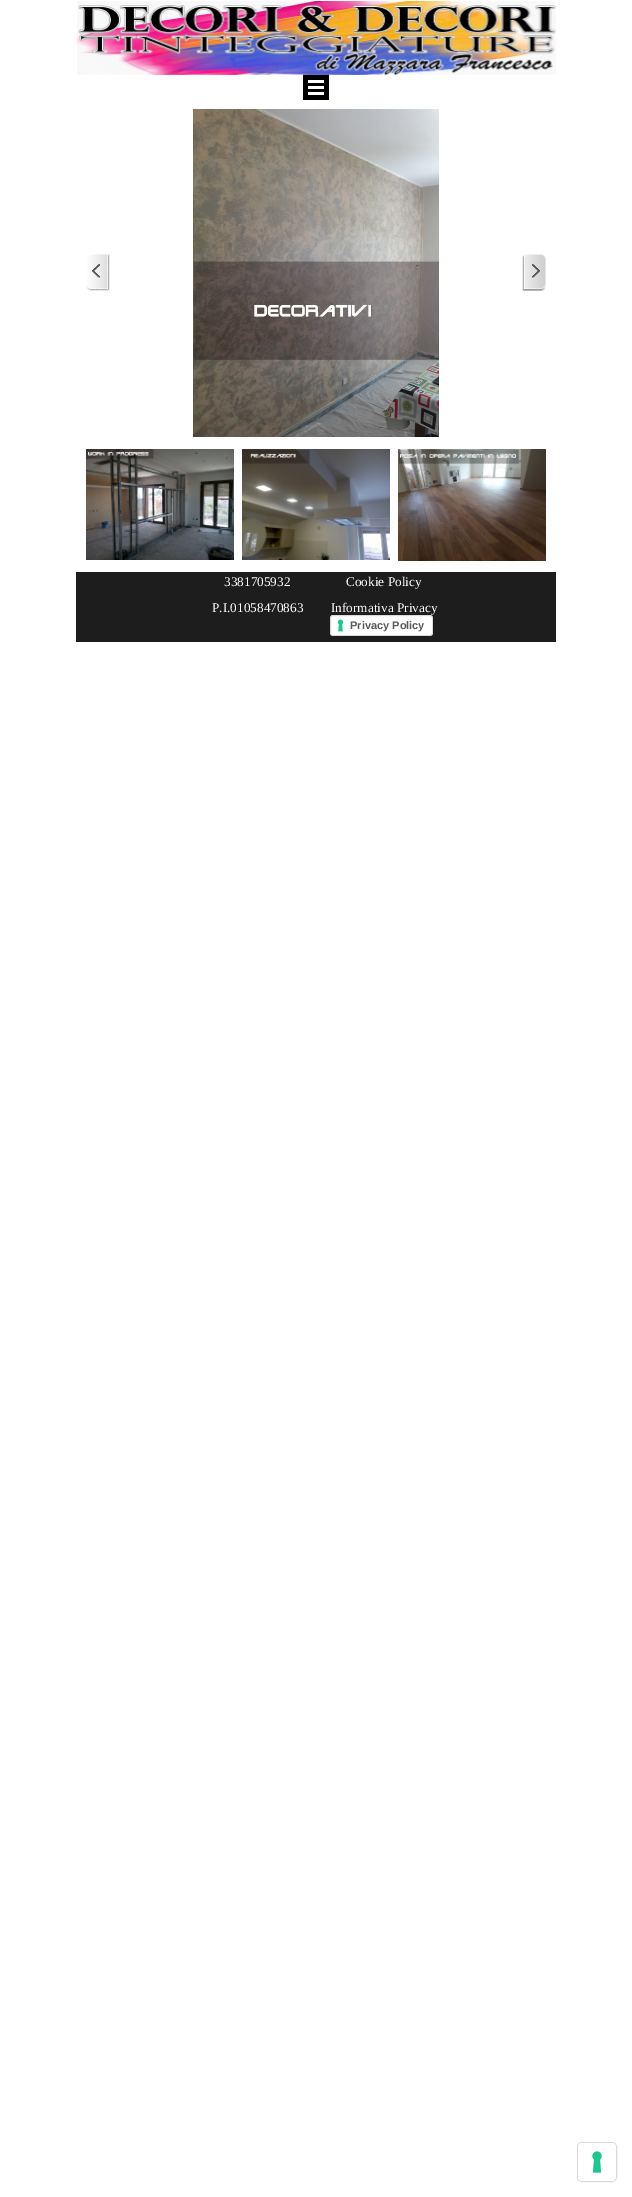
%!PS
<< /PageSize [632 2197] /PageUsesTransparency true >> setpagedevice
/rgb { dup -16 bitshift 255 div exch dup -8 bitshift 255 and 255 div exch 255 and 255 div setrgbcolor } def
/font { [ exch dup neg 0 0 3 -1 roll 0 0 ] selectfont } def
/text { moveto show } def
/alpha { dup .setfillconstantalpha .setstrokeconstantalpha } def
/roundrect { 5 dict begin { /r /h /w /y /x } { exch def } forall
  x r add y moveto x w add y 2 copy h add r arct x w add y h add x 1 index r arct
  x y h add x y r arct x y 2 copy exch w add exch r arct closepath end } def
/picture { 5 dict begin { /h /w /y /x /name } { exch def } forall
  gsave x y translate w h scale
  w h 8 [w 0 0 h 0 0] name (r) file false 3 colorimage grestore end } def
0 .pushpdf14devicefilter
0 2197 translate 1 -1 scale
4 setmiterlimit
/s1 { /LiberationSerif-Regular 13.25 font 16#FFFFFF rgb } def
/s2 { /LiberationSans-Bold 11 font 16#595959 rgb } def
16#FFFFFF rgb
0 0 632 2197 rectfill
16#000000 rgb
303 74 26 26 rectfill
(pic1.raw) 77 1 479 74 picture
16#FFFFFF rgb
308 80 16 3 rectfill
308 86 16 3 rectfill
308 92 16 3 rectfill
(pic2.raw) 86 254 24 37 picture
(pic3.raw) 193 109 246 328 picture
(pic4.raw) 522 254 24 37 picture
(pic5.raw) 86 449 148 111 picture
(pic6.raw) 242 449 148 111 picture
(pic7.raw) 398 449 148 112 picture
16#1D1D1D rgb
76 572 480 70 rectfill
s1
(3381705932) 224 586 text
(Cookie Policy) 346 586 text
(P.I.01058470863) 212 612 text
(Informativa Privacy) 331 612 text
330 615 103 21 3 roundrect fill
(pic8.raw) 337 619 7 13 picture
0.15 alpha
16#000000 rgb
330.5 615.5 102 20 2.5 roundrect stroke
1 alpha
s2
(Privacy Policy) 350 629 text
16#D9D9D9 rgb
577.5 2142.5 39 39 4.5 roundrect stroke
16#FFFFFF rgb
578 2143 38 38 4 roundrect fill
(pic9.raw) 592 2151 10 22 picture
.poppdf14devicefilter showpage
